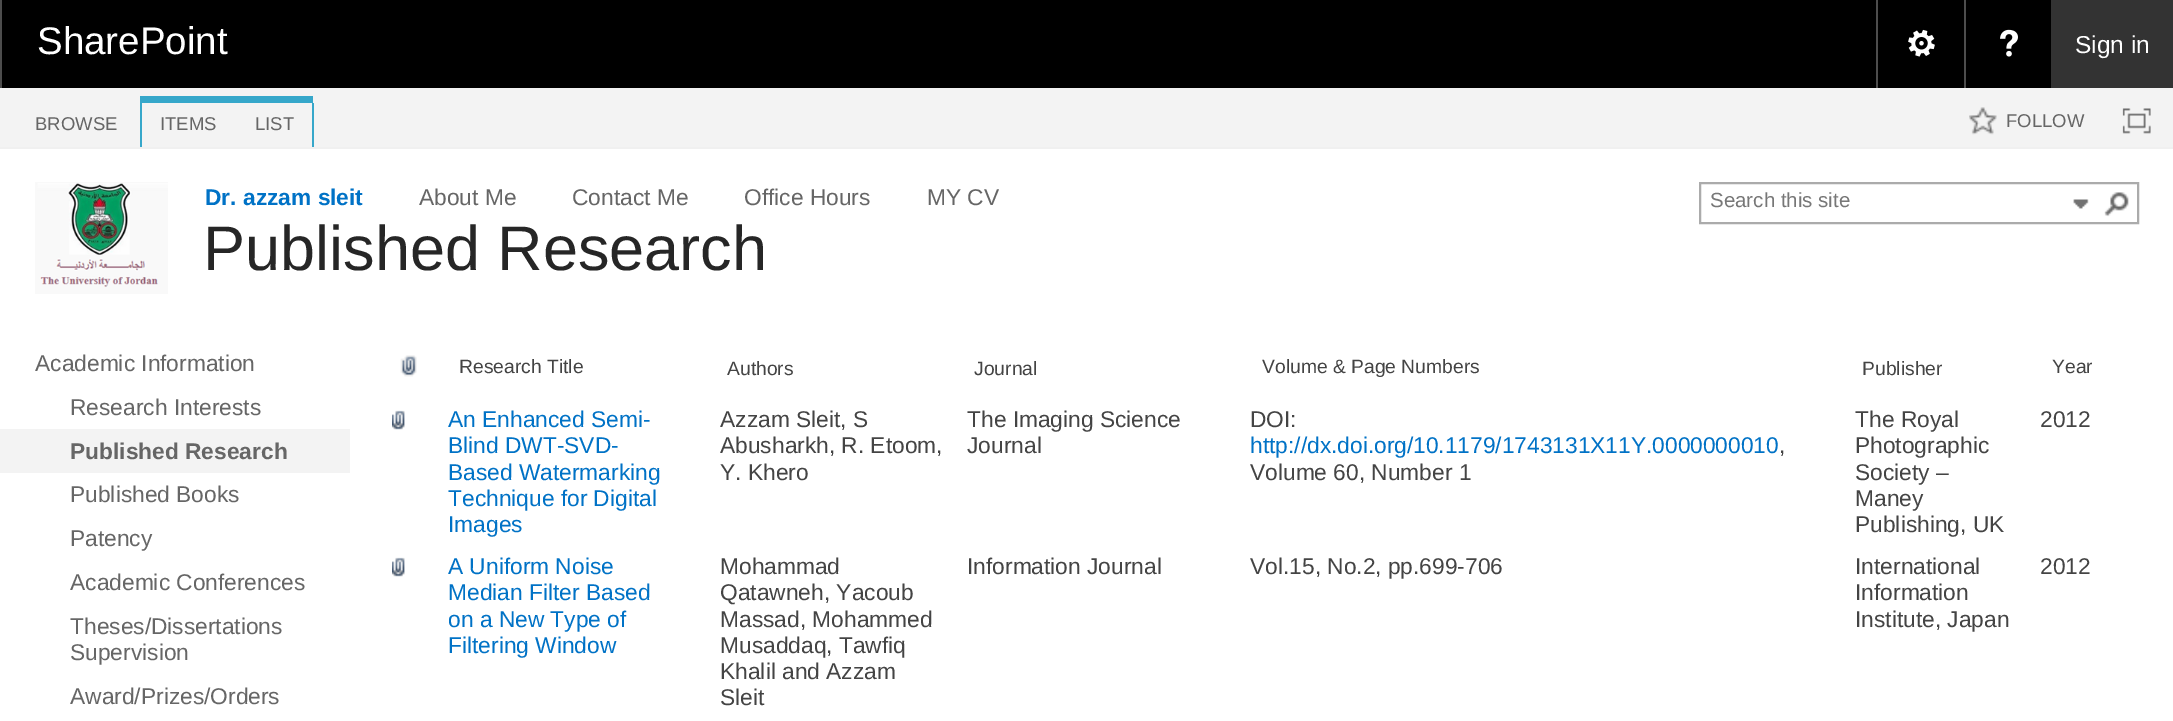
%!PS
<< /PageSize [2173 721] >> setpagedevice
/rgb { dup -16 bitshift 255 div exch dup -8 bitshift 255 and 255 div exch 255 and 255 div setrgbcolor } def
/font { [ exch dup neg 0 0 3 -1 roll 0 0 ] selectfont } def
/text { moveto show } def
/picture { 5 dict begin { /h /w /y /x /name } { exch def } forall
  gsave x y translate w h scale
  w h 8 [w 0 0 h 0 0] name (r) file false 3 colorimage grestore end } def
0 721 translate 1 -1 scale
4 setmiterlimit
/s1 { /LiberationSans-Regular 38.5 font 16#FFFFFF rgb } def
/s2 { /LiberationSans-Regular 24.5 font 16#FFFFFF rgb } def
/s3 { /LiberationSans-Regular 18.5 font 16#666666 rgb } def
/s4 { /LiberationSans-Bold 22.75 font 16#0072C6 rgb } def
/s5 { /LiberationSans-Regular 22.75 font 16#666666 rgb } def
/s6 { /LiberationSans-Regular 63 font 16#262626 rgb } def
/s7 { /LiberationSans-Regular 20.5 font 16#777777 rgb } def
/s8 { /LiberationSans-Bold 22.75 font 16#666666 rgb } def
/s9 { /LiberationSans-Regular 19.3 font 16#444444 rgb } def
/s10 { /LiberationSans-Regular 22.75 font 16#0072C6 rgb } def
/s11 { /LiberationSans-Regular 22.75 font 16#444444 rgb } def
16#FFFFFF rgb
0 0 2173 721 rectfill
16#000000 rgb
2 0 2049 88 rectfill
16#4D4D4D rgb
0 0 2 88 rectfill
s1
(SharePoint) 37 54 text
16#4D4D4D rgb
1876 0 2 88 rectfill
(pic1.raw) 1908 29 27 28 picture
1964 0 2 88 rectfill
(pic2.raw) 2000 29 18 28 picture
16#333333 rgb
2051 0 122 88 rectfill
s2
(Sign in) 2075 53 text
16#F3F3F3 rgb
0 88 2173 59 rectfill
16#F0F0F0 rgb
0 147 2173 2 rectfill
s3
(BROWSE) 35 130 text
16#36A7CA rgb
140 96 173 7 rectfill
140 103 2 44 rectfill
s3
(ITEMS) 160 130 text
16#36A7CA rgb
312 103 2 44 rectfill
s3
(LIST) 255 130 text
(pic3.raw) 1969 107 28 28 picture
(FOLLOW) 2006 127 text
(pic4.raw) 2122 108 29 26 picture
(pic5.raw) 35 182 133 112 picture
s4
(Dr. azzam sleit) 205 205 text
s5
(About Me) 419 205 text
(Contact Me) 572 205 text
(Office Hours) 744 205 text
(MY CV) 927 205 text
s6
(Published Research) 203 270 text
16#ABABAB rgb
2 setlinewidth
1700 183 438 40 rectstroke
s7
(Search this site) 1710 207 text
(pic6.raw) 2073 199 16 10 picture
(pic7.raw) 2104 192 25 25 picture
s5
(Academic Information) 35 371 text
(Research Interests) 70 415 text
16#F3F3F3 rgb
0 429 350 44 rectfill
s8
(Published Research) 70 459 text
s5
(Published Books) 70 502 text
(Patency) 70 546 text
(Academic Conferences) 70 590 text
(Theses/Dissertations) 70 634 text
(Supervision) 70 660 text
(Award/Prizes/Orders) 70 704 text
(pic8.raw) 400 355 17 22 picture
s9
(Research Title) 459 373 text
(Authors) 727 375 text
(Journal) 974 375 text
(Volume & Page Numbers) 1262 373 text
(Publisher) 1862 375 text
(Year) 2052 373 text
(pic9.raw) 392 410 13 20 picture
s10
(An Enhanced Semi-) 448 427 text
(Blind DWT-SVD-) 448 453 text
(Based Watermarking) 448 480 text
(Technique for Digital) 448 506 text
(Images) 448 532 text
s11
(Azzam Sleit, S) 720 427 text
(Abusharkh, R. Etoom,) 720 453 text
(Y. Khero) 720 480 text
(The Imaging Science) 967 427 text
(Journal) 967 453 text
(DOI:) 1250 427 text
s10
(http://dx.doi.org/10.1179/1743131X11Y.0000000010) 1250 453 text
s11
(,) 1779 453 text
(Volume 60, Number 1) 1250 480 text
(The Royal) 1855 427 text
(Photographic) 1855 453 text
(Society –) 1855 480 text
(Maney) 1855 506 text
(Publishing, UK) 1855 532 text
(2012) 2040 427 text
(pic9.raw) 392 557 13 20 picture
s10
(A Uniform Noise) 448 574 text
(Median Filter Based) 448 600 text
(on a New Type of) 448 627 text
(Filtering Window) 448 653 text
s11
(Mohammad) 720 574 text
(Qatawneh, Yacoub) 720 600 text
(Massad, Mohammed) 720 627 text
(Musaddaq, Tawfiq) 720 653 text
(Khalil and Azzam) 720 679 text
(Sleit) 720 705 text
(Information Journal) 967 574 text
(Vol.15, No.2, pp.699-706) 1250 574 text
(International) 1855 574 text
(Information) 1855 600 text
(Institute, Japan) 1855 627 text
(2012) 2040 574 text
showpage
